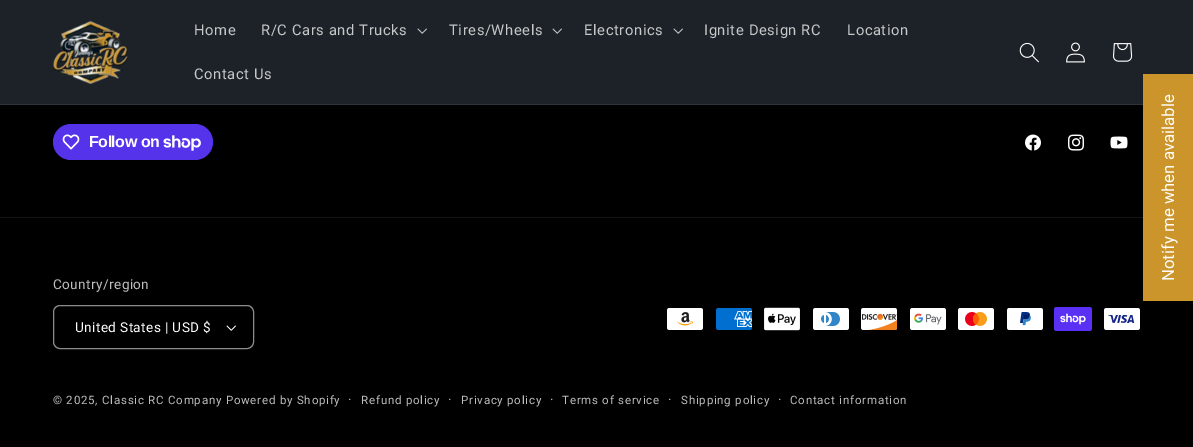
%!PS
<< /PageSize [1193 447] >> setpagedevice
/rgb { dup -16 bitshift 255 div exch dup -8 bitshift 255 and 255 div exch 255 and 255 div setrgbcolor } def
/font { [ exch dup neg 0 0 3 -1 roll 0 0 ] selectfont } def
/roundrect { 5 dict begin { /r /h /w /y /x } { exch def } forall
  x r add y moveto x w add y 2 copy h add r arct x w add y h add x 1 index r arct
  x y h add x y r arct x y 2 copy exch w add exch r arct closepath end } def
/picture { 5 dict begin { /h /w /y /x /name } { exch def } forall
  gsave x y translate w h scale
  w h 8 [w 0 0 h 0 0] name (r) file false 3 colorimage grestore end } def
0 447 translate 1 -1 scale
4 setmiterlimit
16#000000 rgb
0 0 1193 447 rectfill
16#1C2228 rgb
0 0 1193 104 rectfill
16#2E3439 rgb
0 104 1143 1 rectfill
(pic1.raw) 53 20 75 64 picture
/Roboto-Regular 14.75 font
16#C6C8C9 rgb
194 35 moveto 0.6 0 (Home) ashow
261 35 moveto 0.6 0 (R/C Cars and Trucks) ashow
(pic2.raw) 417 28 10 6 picture
449 35 moveto 0.6 0 (Tires/Wheels) ashow
(pic2.raw) 552 28 10 6 picture
584 35 moveto 0.6 0 (Electronics) ashow
(pic2.raw) 673 28 10 6 picture
704 35 moveto 0.6 0 (Ignite Design RC) ashow
847 35 moveto 0.6 0 (Location) ashow
194 79 moveto 0.6 0 (Contact Us) ashow
(pic3.raw) 1019 42 20 21 picture
(pic4.raw) 1066 42 19 21 picture
(pic5.raw) 1113 43 20 19 picture
16#5433EB rgb
53 124 160 36 18 roundrect fill
(pic6.raw) 62 134 18 16 picture
/LiberationSans-Bold 16 font
16#FFFFFF rgb
89 147 moveto -0.5 0 (Follow on) ashow
(pic7.raw) 163 135 38 16 picture
(pic8.raw) 1025 134 16 17 picture
(pic9.raw) 1068 134 16 17 picture
(pic10.raw) 1110 136 18 13 picture
16#141414 rgb
0 217 1143 1 rectfill
/Roboto-Regular 13.6 font
16#BFBFBF rgb
53 289 moveto 0.4 0 (Country/region) ashow
(pic11.raw) 226 325 10 6 picture
16#8C8C8C rgb
53.5 305.5 200 43 6.5 roundrect stroke
16#FFFFFF rgb
75 332 moveto 0.4 0 (United States | USD $) ashow
(pic12.raw) 667 308 36 22 picture
(pic13.raw) 716 308 36 22 picture
(pic14.raw) 764 307 36 24 picture
(pic15.raw) 813 308 36 22 picture
(pic16.raw) 861 308 37 22 picture
(pic17.raw) 910 308 36 22 picture
(pic18.raw) 958 308 36 22 picture
(pic19.raw) 1007 308 36 22 picture
(pic20.raw) 1054 307 38 24 picture
(pic21.raw) 1104 308 36 22 picture
/Roboto-Regular 11.55 font
16#BFBFBF rgb
53 404 moveto 0.75 0 (© 2025, Classic RC Company Powered by Shopify) ashow
/Roboto-Regular 13 font
348 404 moveto 0.75 0 (·) ashow
/Roboto-Regular 11.55 font
361 404 moveto 0.75 0 (Refund policy) ashow
/Roboto-Regular 13 font
448 404 moveto 0.75 0 (·) ashow
/Roboto-Regular 11.55 font
461 404 moveto 0.75 0 (Privacy policy) ashow
/Roboto-Regular 13 font
550 404 moveto 0.75 0 (·) ashow
/Roboto-Regular 11.55 font
562 404 moveto 0.75 0 (Terms of service) ashow
/Roboto-Regular 13 font
668 404 moveto 0.75 0 (·) ashow
/Roboto-Regular 11.55 font
681 404 moveto 0.75 0 (Shipping policy) ashow
/Roboto-Regular 13 font
778 404 moveto 0.75 0 (·) ashow
/Roboto-Regular 11.55 font
790 404 moveto 0.75 0 (Contact information) ashow
16#CC952C rgb
1143 74 50 227 rectfill
/Roboto-Regular 16.75 font
16#FFFFFF rgb
gsave 1174 281 translate -90 rotate 0 0 moveto (Notify me when available) show grestore
showpage
